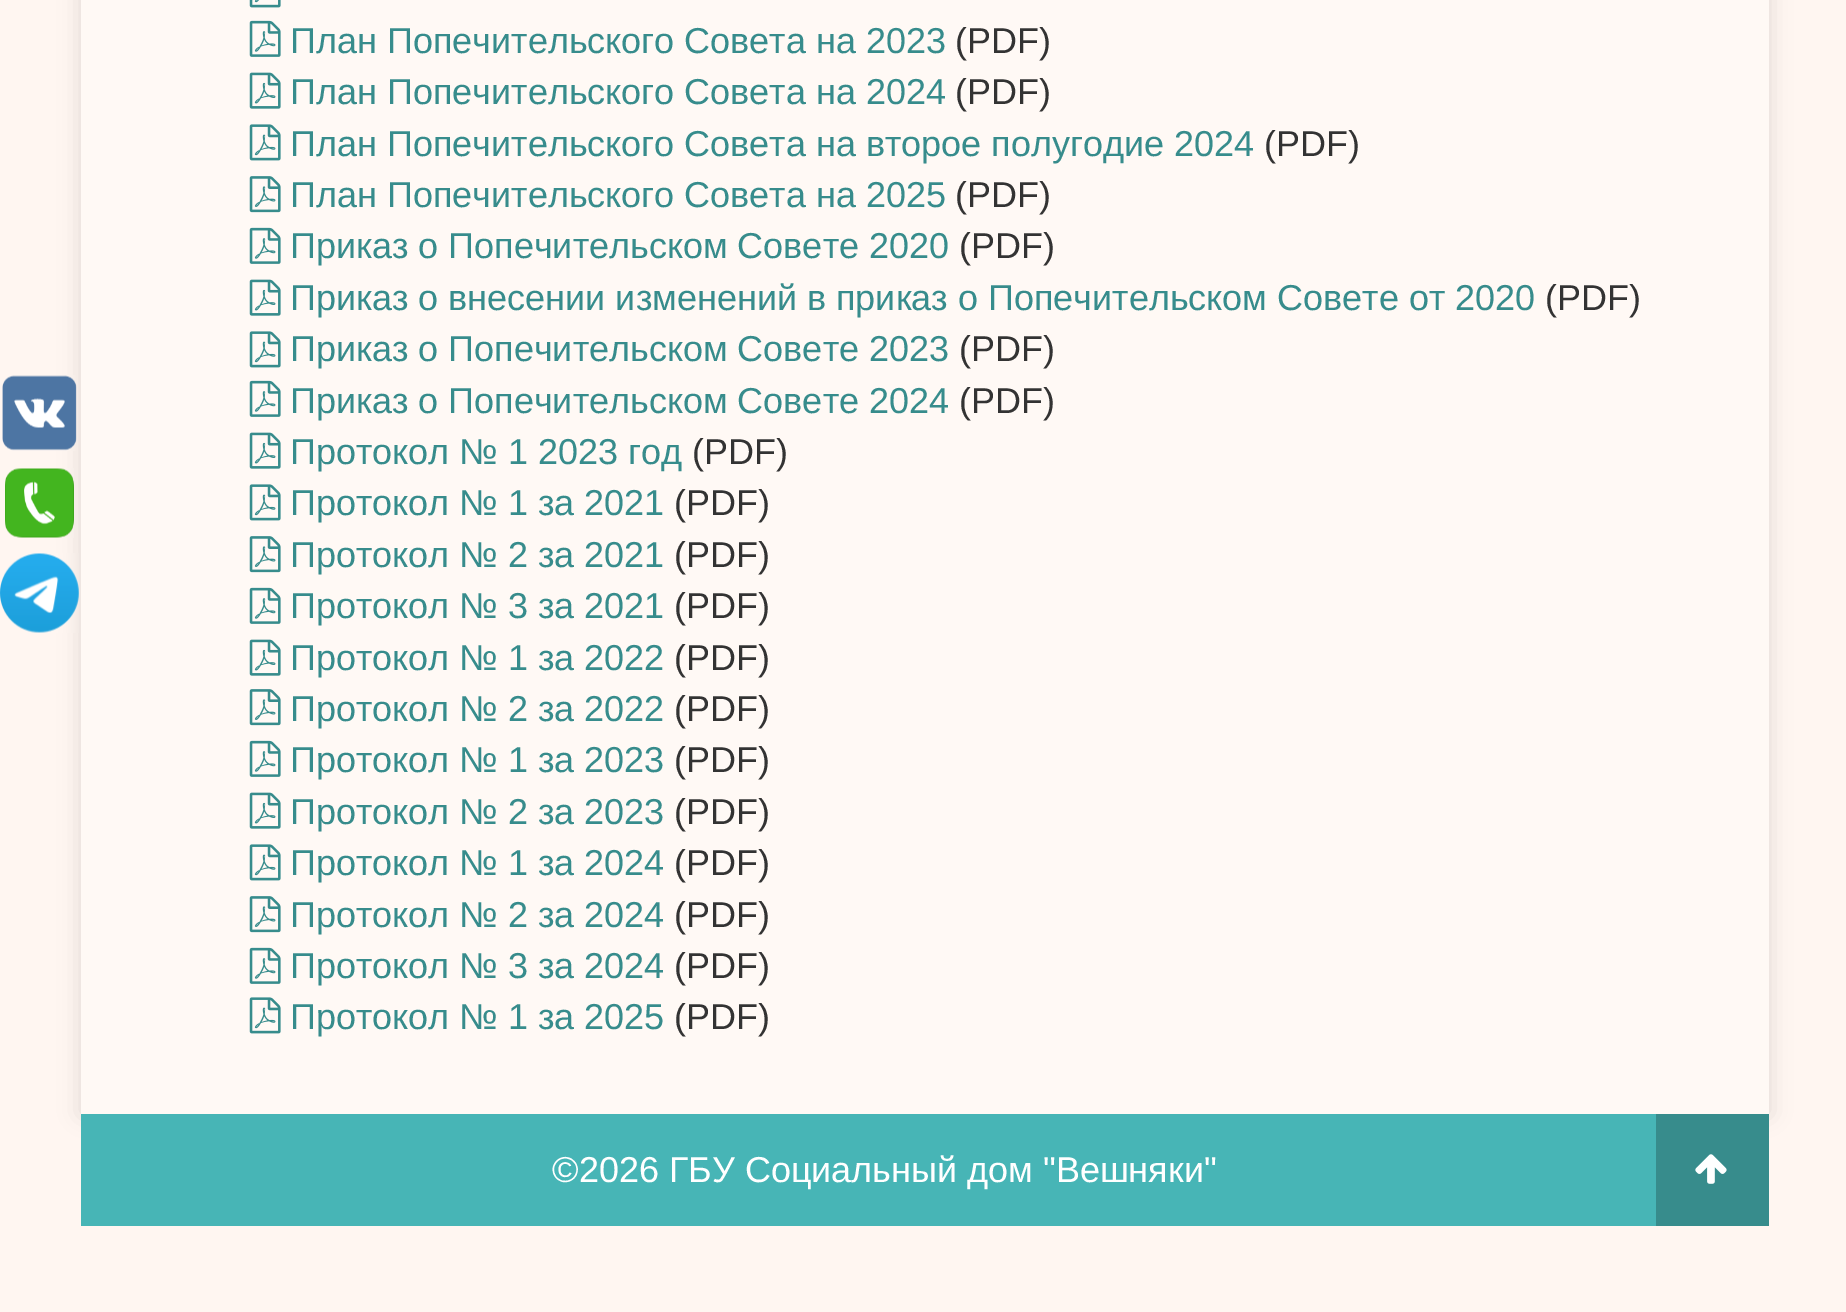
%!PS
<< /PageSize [1846 1312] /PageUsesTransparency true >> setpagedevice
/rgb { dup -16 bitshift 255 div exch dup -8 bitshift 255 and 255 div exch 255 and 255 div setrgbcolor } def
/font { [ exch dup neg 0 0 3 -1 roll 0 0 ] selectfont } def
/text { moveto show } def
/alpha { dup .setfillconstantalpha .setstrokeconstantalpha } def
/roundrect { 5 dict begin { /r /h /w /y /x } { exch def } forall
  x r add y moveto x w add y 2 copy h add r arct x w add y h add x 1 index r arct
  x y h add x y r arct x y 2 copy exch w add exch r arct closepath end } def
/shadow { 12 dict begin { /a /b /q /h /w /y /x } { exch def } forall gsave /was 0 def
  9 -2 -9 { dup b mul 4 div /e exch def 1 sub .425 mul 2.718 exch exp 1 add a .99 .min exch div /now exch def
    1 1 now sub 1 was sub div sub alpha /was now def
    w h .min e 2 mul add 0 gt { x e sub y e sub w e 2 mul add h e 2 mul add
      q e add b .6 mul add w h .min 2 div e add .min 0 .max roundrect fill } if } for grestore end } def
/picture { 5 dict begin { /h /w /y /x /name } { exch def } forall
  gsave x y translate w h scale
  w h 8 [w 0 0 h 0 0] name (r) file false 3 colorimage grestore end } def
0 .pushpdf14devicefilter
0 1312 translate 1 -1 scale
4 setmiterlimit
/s1 { /LiberationSans-Regular 36 font 16#378C8C rgb } def
/s2 { /LiberationSans-Regular 36 font 16#333333 rgb } def
/s3 { /LiberationSans-Regular 36 font 16#FFFFFF rgb } def
16#FFF6F1 rgb
0 0 1846 1312 rectfill
gsave
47 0 moveto 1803 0 lineto 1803 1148 lineto 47 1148 lineto closepath 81 -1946 moveto 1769 -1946 lineto 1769 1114 lineto 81 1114 lineto closepath eoclip newpath
16#000000 rgb
81 -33 1688 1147 0 11 0.12 shadow
grestore
(pic1.raw) 2 375 75 76 picture
(pic2.raw) 5 468 69 70 picture
(pic3.raw) 0 553 79 80 picture
0.3 alpha
16#FFFFFF rgb
81 0 1688 1114 rectfill
1 alpha
(pic4.raw) 249 0 32 8 picture
(pic5.raw) 249 20 32 37 picture
s1
(План Попечительского Совета на 2023) 290 53 text
s2
(\(PDF\)) 955 53 text
(pic6.raw) 249 72 32 37 picture
s1
(План Попечительского Совета на 2024) 290 104 text
s2
(\(PDF\)) 955 104 text
(pic7.raw) 249 124 32 37 picture
s1
(План Попечительского Совета на второе полугодие 2024) 290 156 text
s2
(\(PDF\)) 1264 156 text
(pic8.raw) 249 176 32 37 picture
s1
(План Попечительского Совета на 2025) 290 207 text
s2
(\(PDF\)) 955 207 text
(pic5.raw) 249 227 32 37 picture
s1
(Приказ о Попечительском Совете 2020) 290 258 text
s2
(\(PDF\)) 959 258 text
(pic6.raw) 249 279 32 37 picture
s1
(Приказ о внесении изменений в приказ о Попечительском Совете от 2020) 290 310 text
s2
(\(PDF\)) 1545 310 text
(pic7.raw) 249 331 32 37 picture
s1
(Приказ о Попечительском Совете 2023) 290 361 text
s2
(\(PDF\)) 959 361 text
(pic5.raw) 249 380 32 37 picture
s1
(Приказ о Попечительском Совете 2024) 290 413 text
s2
(\(PDF\)) 959 413 text
(pic6.raw) 249 432 32 37 picture
s1
(Протокол № 1 2023 год) 290 464 text
s2
(\(PDF\)) 692 464 text
(pic7.raw) 249 484 32 37 picture
s1
(Протокол № 1 за 2021) 290 515 text
s2
(\(PDF\)) 674 515 text
(pic8.raw) 249 536 32 37 picture
s1
(Протокол № 2 за 2021) 290 567 text
s2
(\(PDF\)) 674 567 text
(pic5.raw) 249 587 32 37 picture
s1
(Протокол № 3 за 2021) 290 618 text
s2
(\(PDF\)) 674 618 text
(pic6.raw) 249 639 32 37 picture
s1
(Протокол № 1 за 2022) 290 670 text
s2
(\(PDF\)) 674 670 text
(pic8.raw) 249 689 32 37 picture
s1
(Протокол № 2 за 2022) 290 721 text
s2
(\(PDF\)) 674 721 text
(pic5.raw) 249 740 32 37 picture
s1
(Протокол № 1 за 2023) 290 772 text
s2
(\(PDF\)) 674 772 text
(pic6.raw) 249 792 32 37 picture
s1
(Протокол № 2 за 2023) 290 824 text
s2
(\(PDF\)) 674 824 text
(pic7.raw) 249 844 32 37 picture
s1
(Протокол № 1 за 2024) 290 875 text
s2
(\(PDF\)) 674 875 text
(pic8.raw) 249 896 32 37 picture
s1
(Протокол № 2 за 2024) 290 927 text
s2
(\(PDF\)) 674 927 text
(pic5.raw) 249 947 32 37 picture
s1
(Протокол № 3 за 2024) 290 978 text
s2
(\(PDF\)) 674 978 text
(pic7.raw) 249 997 32 37 picture
s1
(Протокол № 1 за 2025) 290 1029 text
s2
(\(PDF\)) 674 1029 text
16#47B5B6 rgb
81 1114 1575 112 rectfill
s3
(©2026 ГБУ Социальный дом "Вешняки") 552 1182 text
16#378C8C rgb
1656 1114 113 112 rectfill
(pic9.raw) 1695 1154 32 30 picture
.poppdf14devicefilter showpage
